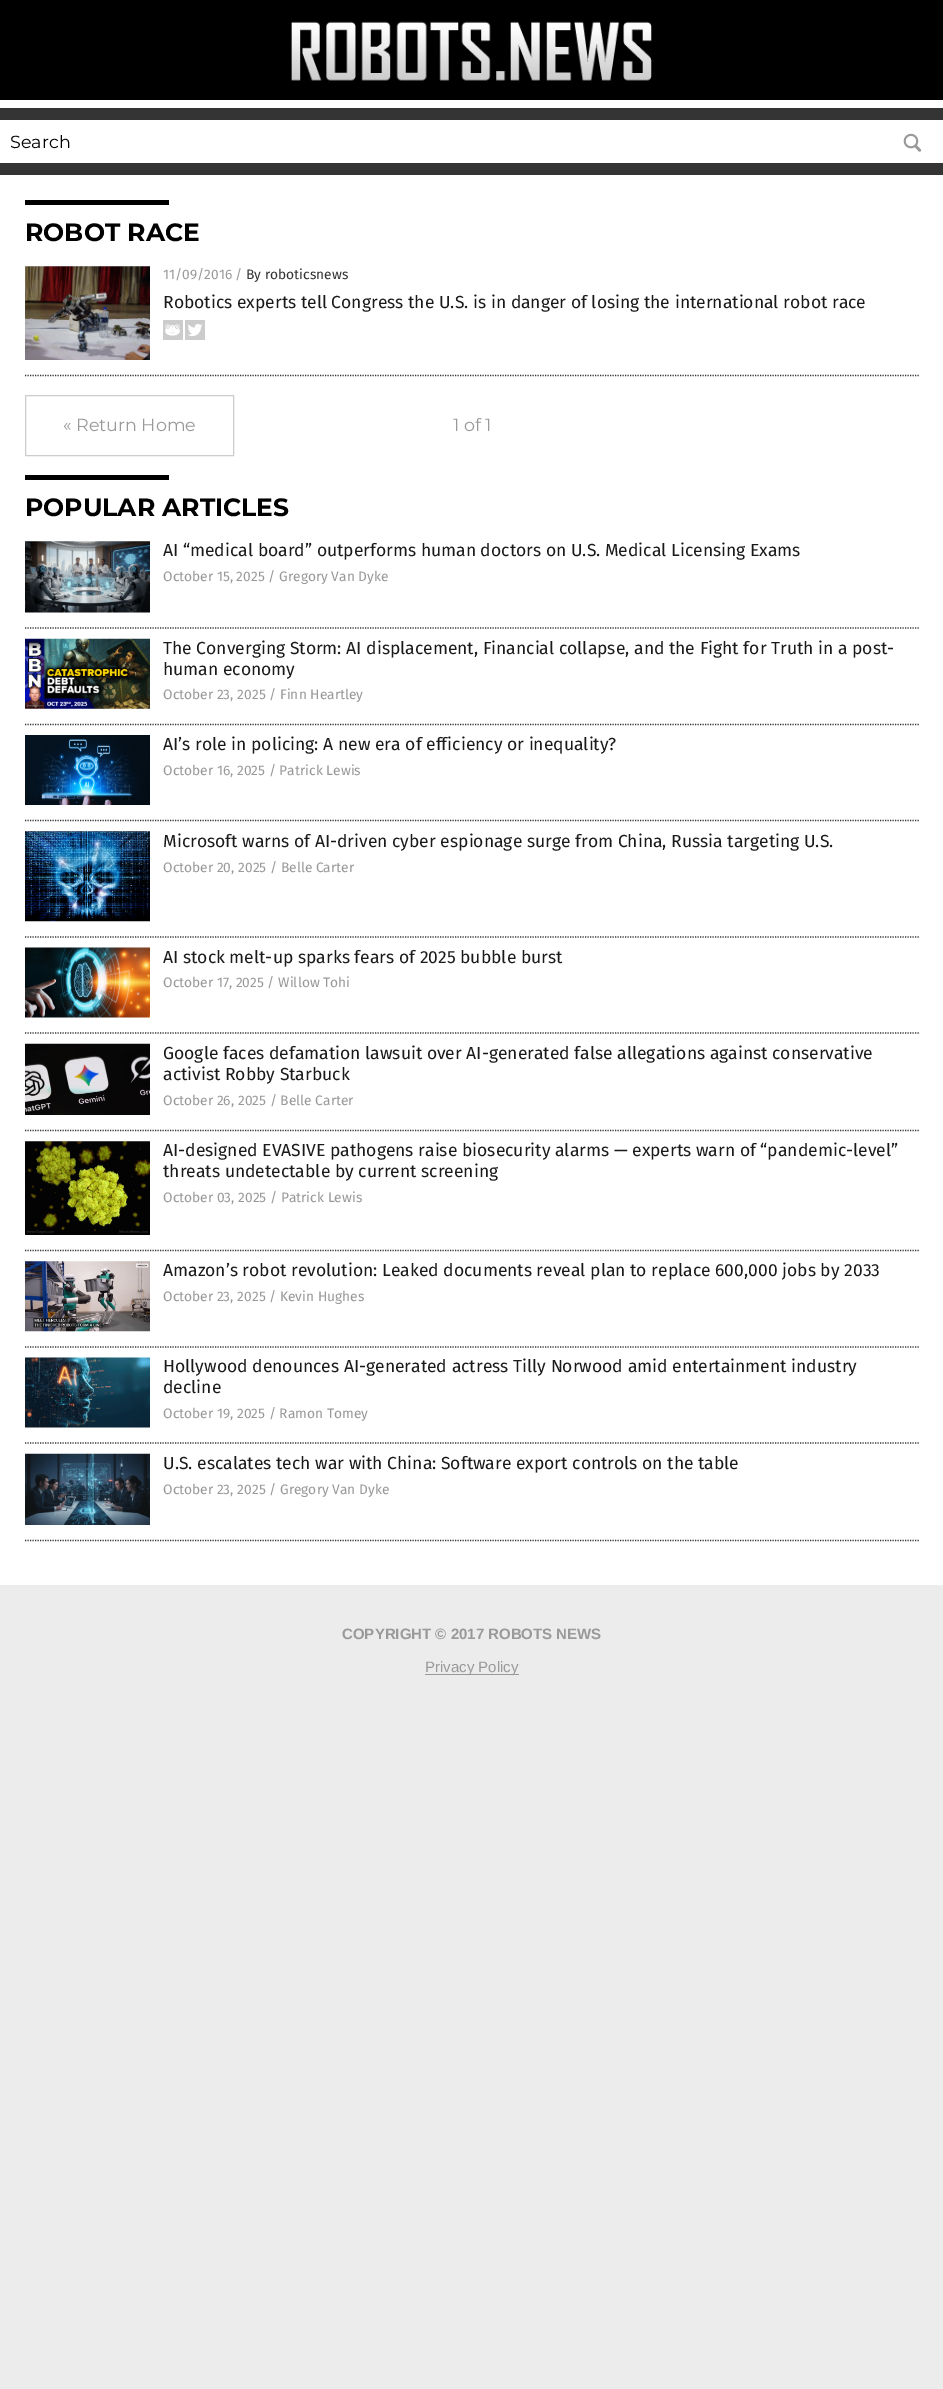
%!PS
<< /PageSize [943 2389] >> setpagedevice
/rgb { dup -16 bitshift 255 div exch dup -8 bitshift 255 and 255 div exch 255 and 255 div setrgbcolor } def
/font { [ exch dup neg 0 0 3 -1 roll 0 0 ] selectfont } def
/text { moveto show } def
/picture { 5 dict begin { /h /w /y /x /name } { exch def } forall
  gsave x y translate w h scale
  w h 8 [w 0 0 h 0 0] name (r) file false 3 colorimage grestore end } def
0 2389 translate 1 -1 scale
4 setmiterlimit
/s1 { /Montserrat-Regular 17.5 font 16#000000 rgb } def
/s2 { /Montserrat-Bold 25 font 16#000000 rgb } def
/s3 { /FiraSans-Regular 13.75 font 16#999999 rgb } def
/s4 { /FiraSans-Regular 13.75 font 16#333333 rgb } def
/s5 { /FiraSans-Regular 17.5 font 16#1A1A1A rgb } def
/s6 { /Montserrat-Regular 17.5 font 16#999999 rgb } def
/s7 { /LiberationSans-Bold 15 font 16#999999 rgb } def
/s8 { /LiberationSans-Regular 15 font 16#999999 rgb } def
16#ECECEC rgb
0 0 943 2389 rectfill
16#343434 rgb
0 108 943 67 rectfill
16#000000 rgb
0 0 943 100 rectfill
(pic1.raw) 291 21 361 60 picture
16#FFFFFF rgb
0 100 943 8 rectfill
0 120 943 43 rectfill
s1
(Search) 10 148 text
(pic2.raw) 903 133 19 19 picture
16#FFFFFF rgb
0 175 943 1410 rectfill
16#000000 rgb
25 200 144 5 rectfill
s2
(ROBOT RACE) 25 241 text
16#343434 rgb
1.2 setlinewidth
[1.25 1.25] 0 setdash
25 375.5 moveto 919 375.5 lineto stroke
(pic3.raw) 25 266 125 94 picture
s3
(11/09/2016 /) 163 279 text
s4
(By roboticsnews) 246 279 text
s5
(Robotics experts tell Congress the U.S. is in danger of losing the international robot race) 163 308 text
(pic4.raw) 163 320 20 20 picture
(pic5.raw) 185 320 20 20 picture
16#CCCCCC rgb
1 setlinewidth
[] 0 setdash
25.5 395.5 208 60 rectstroke
s6
(« Return Home) 63 431 text
(1 of 1) 453 431 text
16#000000 rgb
25 475 144 5 rectfill
s2
(POPULAR ARTICLES) 25 516 text
16#343434 rgb
1.2 setlinewidth
[1.25 1.25] 0 setdash
25 628 moveto 919 628 lineto stroke
(pic6.raw) 25 541 125 72 picture
s5
(AI “medical board” outperforms human doctors on U.S. Medical Licensing Exams) 163 556 text
s3
(October 15, 2025 / Gregory Van Dyke) 163 581 text
16#343434 rgb
25 724.5 moveto 919 724.5 lineto stroke
(pic7.raw) 25 638 125 71 picture
s5
(The Converging Storm: AI displacement, Financial collapse, and the Fight for Truth in a post-) 163 654 text
(human economy) 163 675 text
s3
(October 23, 2025 / Finn Heartley) 163 699 text
16#343434 rgb
25 820.5 moveto 919 820.5 lineto stroke
(pic8.raw) 25 735 125 70 picture
s5
(AI’s role in policing: A new era of efficiency or inequality?) 163 750 text
s3
(October 16, 2025 / Patrick Lewis) 163 775 text
16#343434 rgb
25 937 moveto 919 937 lineto stroke
(pic9.raw) 25 831 125 91 picture
s5
(Microsoft warns of AI-driven cyber espionage surge from China, Russia targeting U.S.) 163 847 text
s3
(October 20, 2025 / Belle Carter) 163 872 text
16#343434 rgb
25 1033 moveto 919 1033 lineto stroke
(pic10.raw) 25 947 125 71 picture
s5
(AI stock melt-up sparks fears of 2025 bubble burst) 163 963 text
s3
(October 17, 2025 / Willow Tohi) 163 987 text
16#343434 rgb
25 1130.5 moveto 919 1130.5 lineto stroke
(pic11.raw) 25 1043 125 72 picture
s5
(Google faces defamation lawsuit over AI-generated false allegations against conservative) 163 1059 text
(activist Robby Starbuck) 163 1080 text
s3
(October 26, 2025 / Belle Carter) 163 1105 text
16#343434 rgb
25 1250.5 moveto 919 1250.5 lineto stroke
(pic12.raw) 25 1141 125 94 picture
s5
(AI-designed EVASIVE pathogens raise biosecurity alarms — experts warn of “pandemic-level”) 163 1156 text
(threats undetectable by current screening) 163 1177 text
s3
(October 03, 2025 / Patrick Lewis) 163 1202 text
16#343434 rgb
25 1347 moveto 919 1347 lineto stroke
(pic13.raw) 25 1261 125 71 picture
s5
(Amazon’s robot revolution: Leaked documents reveal plan to replace 600,000 jobs by 2033) 163 1276 text
s3
(October 23, 2025 / Kevin Hughes) 163 1301 text
16#343434 rgb
25 1443 moveto 919 1443 lineto stroke
(pic14.raw) 25 1357 125 71 picture
s5
(Hollywood denounces AI-generated actress Tilly Norwood amid entertainment industry) 163 1372 text
(decline) 163 1393 text
s3
(October 19, 2025 / Ramon Tomey) 163 1418 text
16#343434 rgb
25 1540.5 moveto 919 1540.5 lineto stroke
(pic15.raw) 25 1453 125 72 picture
s5
(U.S. escalates tech war with China: Software export controls on the table) 163 1469 text
s3
(October 23, 2025 / Gregory Van Dyke) 163 1494 text
s7
(COPYRIGHT © 2017 ROBOTS NEWS) 342 1639 text
425 1674 94 1 rectfill
s8
(Privacy Policy) 425 1672 text
showpage
